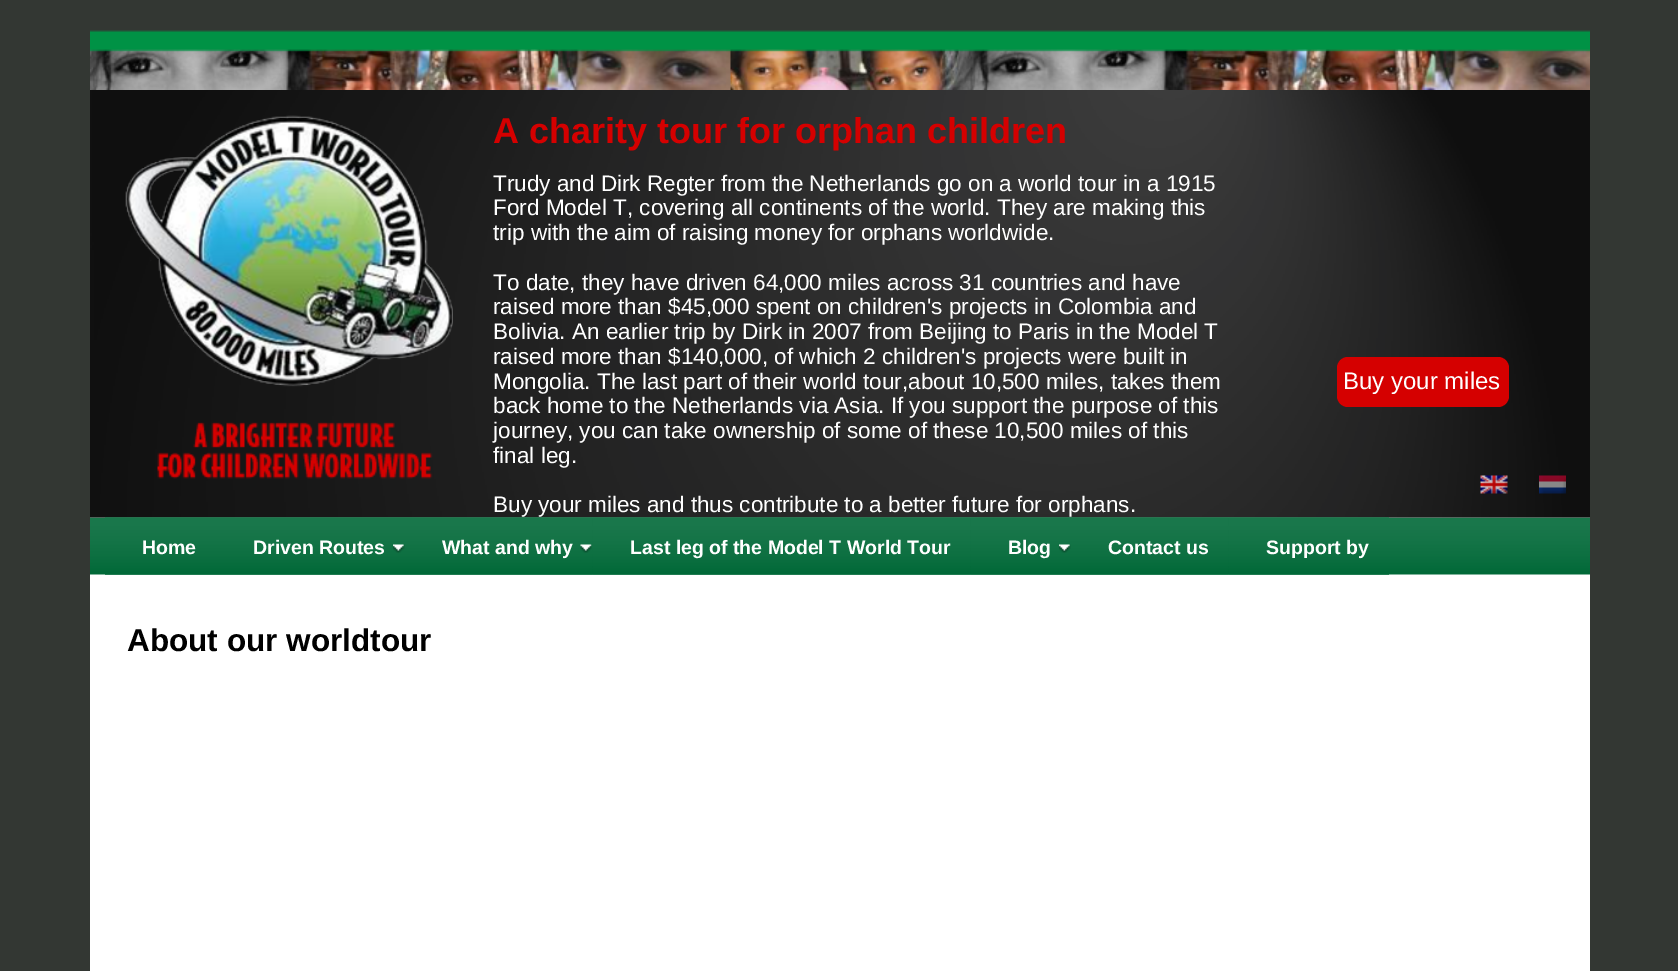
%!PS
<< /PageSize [1678 971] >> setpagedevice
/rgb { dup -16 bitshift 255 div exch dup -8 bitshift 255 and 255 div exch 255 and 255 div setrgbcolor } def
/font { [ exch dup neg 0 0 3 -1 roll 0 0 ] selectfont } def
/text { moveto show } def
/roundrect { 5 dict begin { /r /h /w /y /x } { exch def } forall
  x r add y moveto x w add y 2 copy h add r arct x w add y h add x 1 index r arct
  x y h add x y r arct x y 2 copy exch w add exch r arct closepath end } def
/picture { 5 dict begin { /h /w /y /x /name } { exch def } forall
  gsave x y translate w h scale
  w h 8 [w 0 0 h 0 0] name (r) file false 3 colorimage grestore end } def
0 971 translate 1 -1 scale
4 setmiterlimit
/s1 { /LiberationSans-Bold 36 font 16#D50000 rgb } def
/s2 { /LiberationSans-Regular 22.5 font 16#FFFFFF rgb } def
/s3 { /LiberationSans-Regular 24 font 16#FFFFFF rgb } def
/s4 { /LiberationSans-Bold 19.5 font 16#FFFFFF rgb } def
/s5 { /LiberationSans-Bold 31.5 font 16#000000 rgb } def
16#333733 rgb
0 0 1678 971 rectfill
16#FFFFFF rgb
90 517 1500 454 rectfill
(pic7.raw) 90 517 1500 58 picture
(pic1.raw) 90 90 1500 428 picture
(pic2.raw) 90 30 1500 60 picture
(pic3.raw) 125 115 328 272 picture
s1
(A charity tour for orphan children) 493 143 text
s2
(Trudy and Dirk Regter from the Netherlands go on a world tour in a 1915) 493 191 text
(Ford Model T, covering all continents of the world. They are making this) 493 215 text
(trip with the aim of raising money for orphans worldwide.) 493 240 text
(To date, they have driven 64,000 miles across 31 countries and have) 493 290 text
(raised more than $45,000 spent on children's projects in Colombia and) 493 314 text
(Bolivia. An earlier trip by Dirk in 2007 from Beijing to Paris in the Model T) 493 339 text
(raised more than $140,000, of which 2 children's projects were built in) 493 364 text
(Mongolia. The last part of their world tour,about 10,500 miles, takes them) 493 389 text
(back home to the Netherlands via Asia. If you support the purpose of this) 493 413 text
(journey, you can take ownership of some of these 10,500 miles of this) 493 438 text
(final leg.) 493 463 text
(Buy your miles and thus contribute to a better future for orphans.) 493 512 text
16#D50000 rgb
1337 357 172 50 11 roundrect fill
s3
(Buy your miles) 1343 389 text
(pic4.raw) 1480 475 28 19 picture
(pic5.raw) 1539 475 27 19 picture
(pic6.raw) 157 422 276 57 picture
(pic8.raw) 105 517 1284 58 picture
(pic9.raw) 105 517 111 58 picture
s4
(Home) 142 554 text
(pic10.raw) 216 517 189 58 picture
(Driven Routes) 253 554 text
(pic11.raw) 393 544 12 9 picture
(pic14.raw) 592 517 379 58 picture
(pic12.raw) 405 517 188 58 picture
(What and why) 442 554 text
(pic13.raw) 580 544 12 9 picture
(Last leg of the Model T World Tour) 630 554 text
(pic15.raw) 970 517 101 58 picture
(Blog) 1008 554 text
(pic11.raw) 1059 544 12 9 picture
(pic16.raw) 1071 517 158 58 picture
(Contact us) 1108 554 text
(pic17.raw) 1228 517 161 58 picture
(Support by) 1266 554 text
s5
(About our worldtour) 127 651 text
showpage
